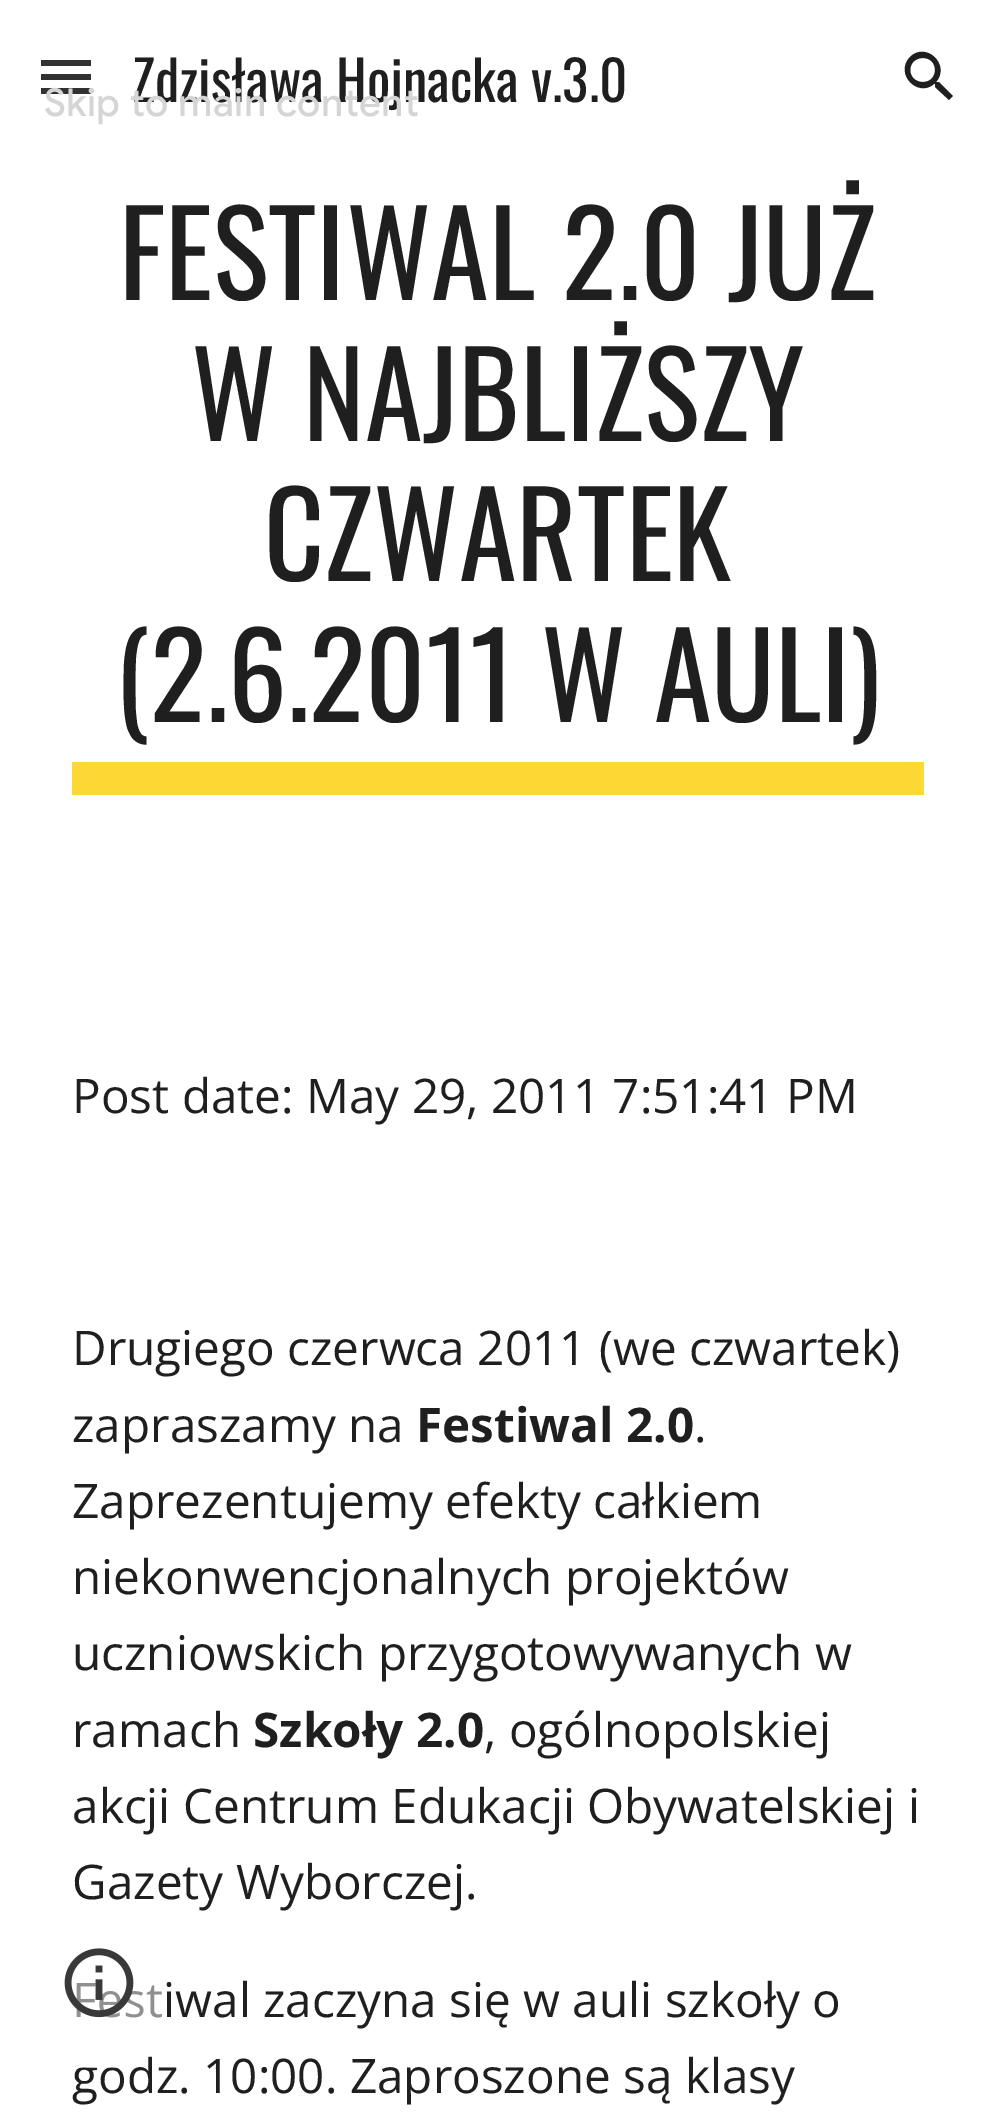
%!PS
<< /PageSize [994 2112] /PageUsesTransparency true >> setpagedevice
/rgb { dup -16 bitshift 255 div exch dup -8 bitshift 255 and 255 div exch 255 and 255 div setrgbcolor } def
/font { [ exch dup neg 0 0 3 -1 roll 0 0 ] selectfont } def
/text { moveto show } def
/alpha { dup .setfillconstantalpha .setstrokeconstantalpha } def
/roundrect { 5 dict begin { /r /h /w /y /x } { exch def } forall
  x r add y moveto x w add y 2 copy h add r arct x w add y h add x 1 index r arct
  x y h add x y r arct x y 2 copy exch w add exch r arct closepath end } def
/picture { 5 dict begin { /h /w /y /x /name } { exch def } forall
  gsave x y translate w h scale
  w h 8 [w 0 0 h 0 0] name (r) file false 3 colorimage grestore end } def
0 .pushpdf14devicefilter
0 2112 translate 1 -1 scale
4 setmiterlimit
/s1 { /Oswald-Regular 55 font 16#1F1F1F rgb } def
/s2 { /Oswald-Regular 117.25 font 16#1F1F1F rgb } def
/s3 { /OpenSans-Regular 47.7 font 16#1F1F1F rgb } def
/s4 { /OpenSans-Bold 47.7 font 16#1F1F1F rgb } def
16#FFFFFF rgb
0 0 994 2112 rectfill
16#323232 rgb
41 60 50 6 rectfill
41 74 50 6 rectfill
41 88 50 6 rectfill
s1
(Zdzisława Hojnacka v.3.0) 132 102 text
939 82 moveto 937 82 lineto 936 82 lineto 951 65 926 41 910 57 curveto 894 74 918 98 934 84 curveto 935 84 lineto 935 87 lineto 949 100 lineto 953 96 lineto closepath 923 82 moveto 906 82 906 58 923 58 curveto 939 58 939 82 923 82 curveto closepath fill
s2
(FESTIWAL 2.0 JUŻ) 119 300 text
(W NAJBLIŻSZY) 191 441 text
(CZWARTEK) 264 581 text
(\(2.6.2011 W AULI\)) 115 722 text
16#FDD835 rgb
72 762 852 33 rectfill
s3
(Post date: May 29, 2011 7:51:41 PM) 72 1113 text
(Drugiego czerwca 2011 \(we czwartek\)) 72 1365 text
(zapraszamy na) 72 1442 text
s4
(Festiwal 2.0) 416 1442 text
s3
(.) 694 1442 text
(Zaprezentujemy efekty całkiem) 72 1518 text
(niekonwencjonalnych projektów) 72 1594 text
(uczniowskich przygotowywanych w) 72 1670 text
(ramach) 72 1747 text
s4
(Szkoły 2.0) 253 1747 text
s3
(, ogólnopolskiej) 484 1747 text
(akcji Centrum Edukacji Obywatelskiej i) 72 1823 text
(Gazety Wyborczej.) 72 1899 text
(Festiwal zaczyna się w auli szkoły o) 72 2017 text
(godz. 10:00. Zaproszone są klasy) 72 2093 text
0.5 alpha
16#FFFFFF rgb
33 1936 132 132 47 roundrect fill
1 alpha
(pic1.raw) 64 1948 70 70 picture
/GoogleSans-Medium 38.5 font
16#D5D5D5 rgb
44 116 moveto 0.4 0 (Skip to main content) ashow
.poppdf14devicefilter showpage
